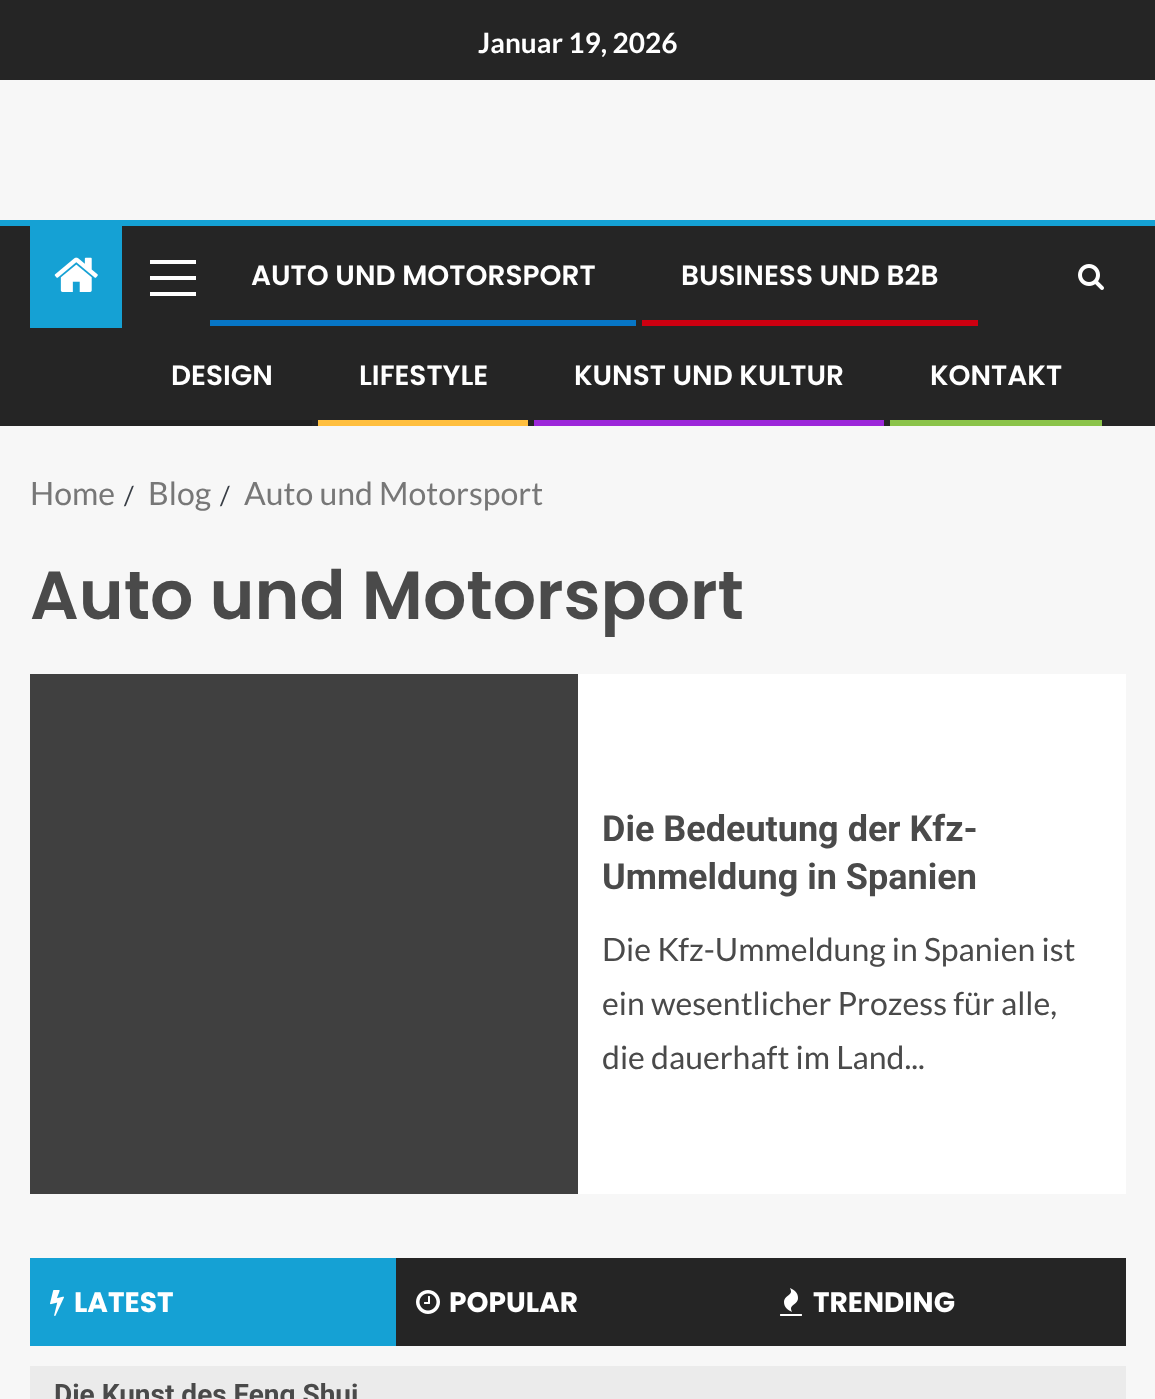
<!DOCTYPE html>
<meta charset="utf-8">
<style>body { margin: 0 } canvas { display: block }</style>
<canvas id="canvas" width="1155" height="1399"></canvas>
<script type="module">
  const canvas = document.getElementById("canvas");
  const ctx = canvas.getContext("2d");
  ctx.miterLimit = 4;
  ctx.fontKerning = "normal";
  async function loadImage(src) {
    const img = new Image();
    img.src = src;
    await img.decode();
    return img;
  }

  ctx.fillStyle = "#f7f7f7";
  ctx.fillRect(0, 0, 1155, 1399);
  ctx.fillStyle = "#252525";
  ctx.fillRect(0, 0, 1155, 80);
  ctx.font = "bold 28px Lato";
  ctx.fillStyle = "#ffffff";
  ctx.fillText("Januar 19, 2026", 478, 53);
  ctx.fillStyle = "#252525";
  ctx.fillRect(0, 226, 1155, 200);
  ctx.fillStyle = "#15a1d4";
  ctx.fillRect(0, 220, 1155, 6);
  ctx.fillRect(30, 226, 92, 102);
  ctx.drawImage(await loadImage("img1.png"), 54, 257, 44, 35);
  ctx.fillStyle = "#ffffff";
  ctx.fillRect(150, 276, 46, 4);
  ctx.fillRect(150, 260, 46, 4);
  ctx.fillRect(150, 292, 46, 4);
  ctx.font = "600 28px Poppins";
  ctx.fillText("AUTO UND MOTORSPORT", 251, 285);
  ctx.fillStyle = "#0776c6";
  ctx.fillRect(210, 320, 426, 6);
  ctx.fillStyle = "#ffffff";
  ctx.fillText("BUSINESS UND B2B", 681, 285);
  ctx.fillStyle = "#cc0010";
  ctx.fillRect(642, 320, 336, 6);
  ctx.fillStyle = "#ffffff";
  ctx.fillText("DESIGN", 171, 385);
  ctx.fillStyle = "#202020";
  ctx.fillRect(130, 420, 182, 6);
  ctx.fillStyle = "#ffffff";
  ctx.fillText("LIFESTYLE", 359, 385);
  ctx.fillStyle = "#ffbf3f";
  ctx.fillRect(318, 420, 210, 6);
  ctx.fillStyle = "#ffffff";
  ctx.fillText("KUNST UND KULTUR", 574, 385);
  ctx.fillStyle = "#9c27d9";
  ctx.fillRect(534, 420, 350, 6);
  ctx.fillStyle = "#ffffff";
  ctx.fillText("KONTAKT", 930, 385);
  ctx.fillStyle = "#8bc34a";
  ctx.fillRect(890, 420, 212, 6);
  ctx.drawImage(await loadImage("img2.png"), 1078, 264, 26, 26);
  ctx.font = "32px Lato";
  ctx.fillStyle = "#777777";
  ctx.fillText("Home", 30, 505);
  ctx.font = "26px Lato";
  ctx.fillStyle = "#393e46";
  ctx.fillText("/", 124, 505);
  ctx.font = "32px Lato";
  ctx.fillStyle = "#777777";
  ctx.fillText("Blog", 148, 505);
  ctx.font = "26px Lato";
  ctx.fillStyle = "#393e46";
  ctx.fillText("/", 220, 505);
  ctx.font = "32px Lato";
  ctx.fillStyle = "#777777";
  ctx.fillText("Auto und Motorsport", 244, 505);
  ctx.font = "600 68px Poppins";
  ctx.fillStyle = "#4a4a4a";
  ctx.fillText("Auto und Motorsport", 30, 619);
  ctx.fillStyle = "#ffffff";
  ctx.fillRect(578, 674, 548, 520);
  ctx.fillStyle = "#404040";
  ctx.fillRect(30, 674, 548, 520);
  ctx.font = "bold 36px Roboto";
  ctx.fillStyle = "#4a4a4a";
  ctx.fillText("Die Bedeutung der Kfz-", 602, 841);
  ctx.fillText("Ummeldung in Spanien", 602, 889);
  ctx.font = "32px Lato";
  ctx.fillText("Die Kfz-Ummeldung in Spanien ist", 602, 961);
  ctx.fillText("ein wesentlicher Prozess für alle,", 602, 1015);
  ctx.fillText("die dauerhaft im Land...", 602, 1069);
  ctx.fillStyle = "#15a1d4";
  ctx.fillRect(30, 1258, 366, 88);
  ctx.drawImage(await loadImage("img3.png"), 50, 1290, 14, 26);
  ctx.font = "bold 28px Poppins";
  ctx.fillStyle = "#ffffff";
  ctx.fillText("LATEST", 74, 1312);
  ctx.fillStyle = "#252525";
  ctx.fillRect(396, 1258, 730, 88);
  ctx.drawImage(await loadImage("img4.png"), 416, 1290, 24, 24);
  ctx.fillStyle = "#ffffff";
  ctx.fillText("POPULAR", 449, 1312);
  ctx.drawImage(await loadImage("img5.png"), 780, 1288, 22, 28);
  ctx.fillText("TRENDING", 813, 1312);
  ctx.fillStyle = "#ebebeb";
  ctx.fillRect(30, 1366, 1096, 33);
  ctx.font = "bold 28px Roboto";
  ctx.fillStyle = "#4a4a4a";
  ctx.fillText("Die Kunst des Feng Shui", 54, 1404);
</script>
